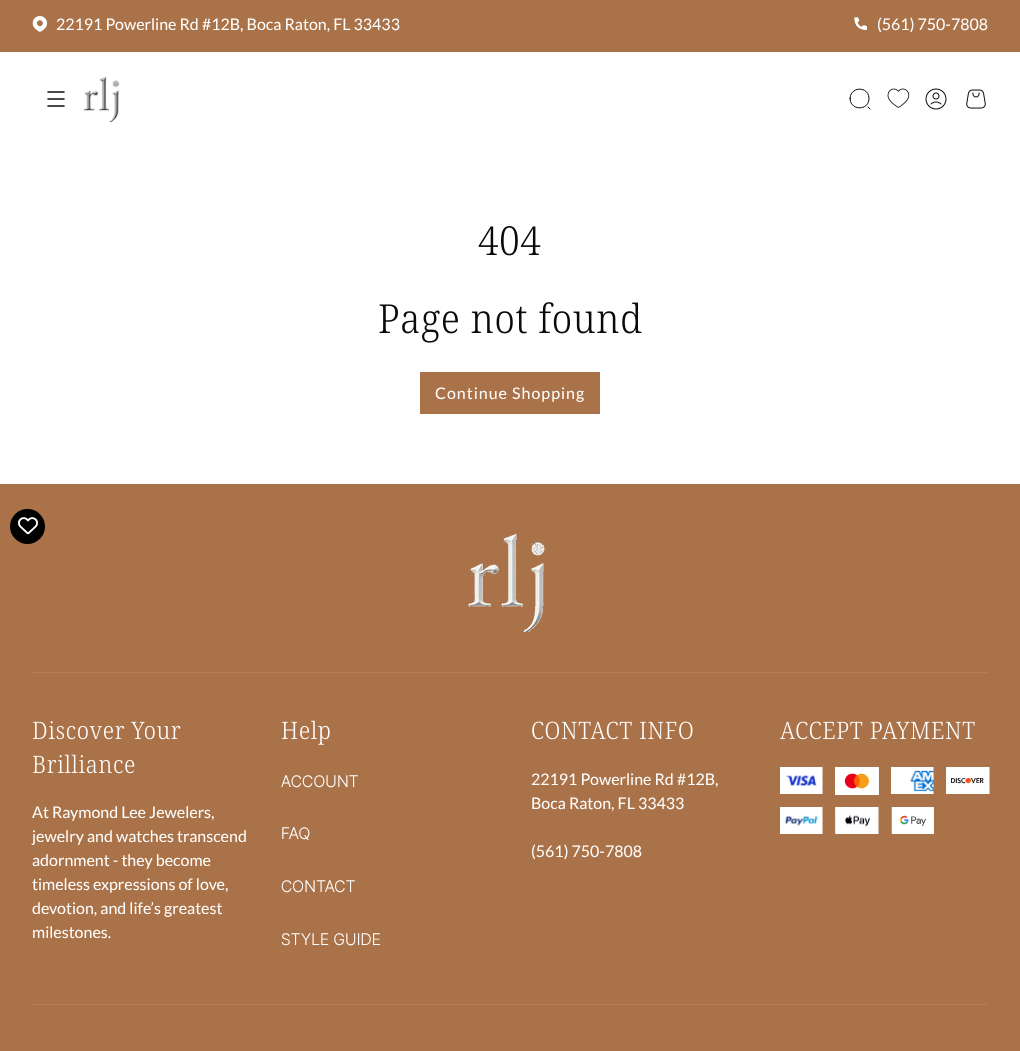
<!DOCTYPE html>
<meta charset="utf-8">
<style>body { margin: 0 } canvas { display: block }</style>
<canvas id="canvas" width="1020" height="1051"></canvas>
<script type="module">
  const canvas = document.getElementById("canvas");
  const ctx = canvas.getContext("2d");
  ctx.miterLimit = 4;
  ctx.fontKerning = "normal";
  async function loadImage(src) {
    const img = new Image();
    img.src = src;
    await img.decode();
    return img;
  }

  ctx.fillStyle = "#ffffff";
  ctx.fillRect(0, 0, 1020, 1051);
  ctx.fillStyle = "#aa7248";
  ctx.fillRect(0, 0, 1020, 52);
  ctx.drawImage(await loadImage("img1.png"), 32, 16, 16, 16);
  ctx.font = "16px Lato";
  ctx.fillStyle = "#ffffff";
  ctx.fillText("22191 Powerline Rd #12B, Boca Raton, FL 33433", 56, 30);
  ctx.drawImage(await loadImage("img2.png"), 854, 17, 13, 13);
  ctx.fillText("(561) 750-7808", 877, 30);
  ctx.drawImage(await loadImage("img3.png"), 47, 91, 18, 16);
  ctx.drawImage(await loadImage("img4.png"), 83, 76, 37, 46);
  ctx.beginPath();
  ctx.moveTo(870, 109);
  ctx.lineTo(868, 107);
  ctx.moveTo(850, 98.5);
  ctx.bezierCurveTo(850, 86, 869, 86, 869, 98.5);
  ctx.bezierCurveTo(869, 111, 850, 111, 850, 98.5);
  ctx.closePath();
  ctx.strokeStyle = "#0b0a0a";
  ctx.lineCap = "round";
  ctx.lineJoin = "round";
  ctx.stroke();
  ctx.drawImage(await loadImage("img5.png"), 887, 88, 23, 20);
  ctx.drawImage(await loadImage("img6.png"), 925, 88, 22, 22);
  ctx.drawImage(await loadImage("img7.png"), 966, 89, 20, 20);
  ctx.drawImage(await loadImage("img8.png"), 478, 226, 63, 30);
  ctx.drawImage(await loadImage("img9.png"), 379, 302, 263, 41);
  ctx.fillStyle = "#aa7248";
  ctx.fillRect(420, 372, 180, 42);
  ctx.letterSpacing = "1px";
  ctx.fillStyle = "#ffffff";
  ctx.fillText("Continue Shopping", 435, 399);
  ctx.fillStyle = "#aa7248";
  ctx.fillRect(0, 484, 1020, 567);
  ctx.fillStyle = "#000000";
  ctx.beginPath();
  ctx.arc(27.5, 526.5, 17.5, 0, Math.PI * 2);
  ctx.fill();
  ctx.drawImage(await loadImage("img10.png"), 18, 517, 20, 18);
  ctx.fillStyle = "#ba7d4f";
  ctx.fillRect(32, 672, 956, 1);
  ctx.drawImage(await loadImage("img11.png"), 468, 532, 78, 100);
  ctx.drawImage(await loadImage("img12.png"), 32, 721, 149, 19);
  ctx.drawImage(await loadImage("img13.png"), 32, 754, 103, 20);
  ctx.letterSpacing = "0px";
  ctx.fillStyle = "#ffffff";
  ctx.fillText("At Raymond Lee Jewelers,", 32, 818);
  ctx.fillText("jewelry and watches transcend", 32, 842);
  ctx.fillText("adornment - they become", 32, 866);
  ctx.fillText("timeless expressions of love,", 32, 890);
  ctx.fillText("devotion, and life’s greatest", 32, 914);
  ctx.fillText("milestones.", 32, 938);
  ctx.drawImage(await loadImage("img14.png"), 281, 720, 49, 25);
  ctx.letterSpacing = "0.25px";
  ctx.font = "300 16px Inter Tight";
  ctx.fillText("ACCOUNT", 281, 787);
  ctx.fillText("FAQ", 281, 839);
  ctx.fillText("CONTACT", 281, 892);
  ctx.fillText("STYLE GUIDE", 281, 945);
  ctx.drawImage(await loadImage("img15.png"), 532, 721, 161, 19);
  ctx.letterSpacing = "0px";
  ctx.font = "16px Lato";
  ctx.fillText("22191 Powerline Rd #12B,", 531, 785);
  ctx.fillText("Boca Raton, FL 33433", 531, 809);
  ctx.fillText("(561) 750-7808", 531, 857);
  ctx.drawImage(await loadImage("img16.png"), 780, 721, 195, 19);
  ctx.drawImage(await loadImage("img17.png"), 780, 767, 43, 27);
  ctx.drawImage(await loadImage("img18.png"), 835, 767, 44, 28);
  ctx.drawImage(await loadImage("img19.png"), 891, 767, 43, 27);
  ctx.drawImage(await loadImage("img20.png"), 946, 767, 44, 27);
  ctx.drawImage(await loadImage("img21.png"), 780, 807, 43, 27);
  ctx.drawImage(await loadImage("img22.png"), 835, 807, 44, 27);
  ctx.drawImage(await loadImage("img23.png"), 891, 807, 43, 27);
  ctx.fillStyle = "#ba7d4f";
  ctx.fillRect(32, 1004, 956, 1);
</script>
